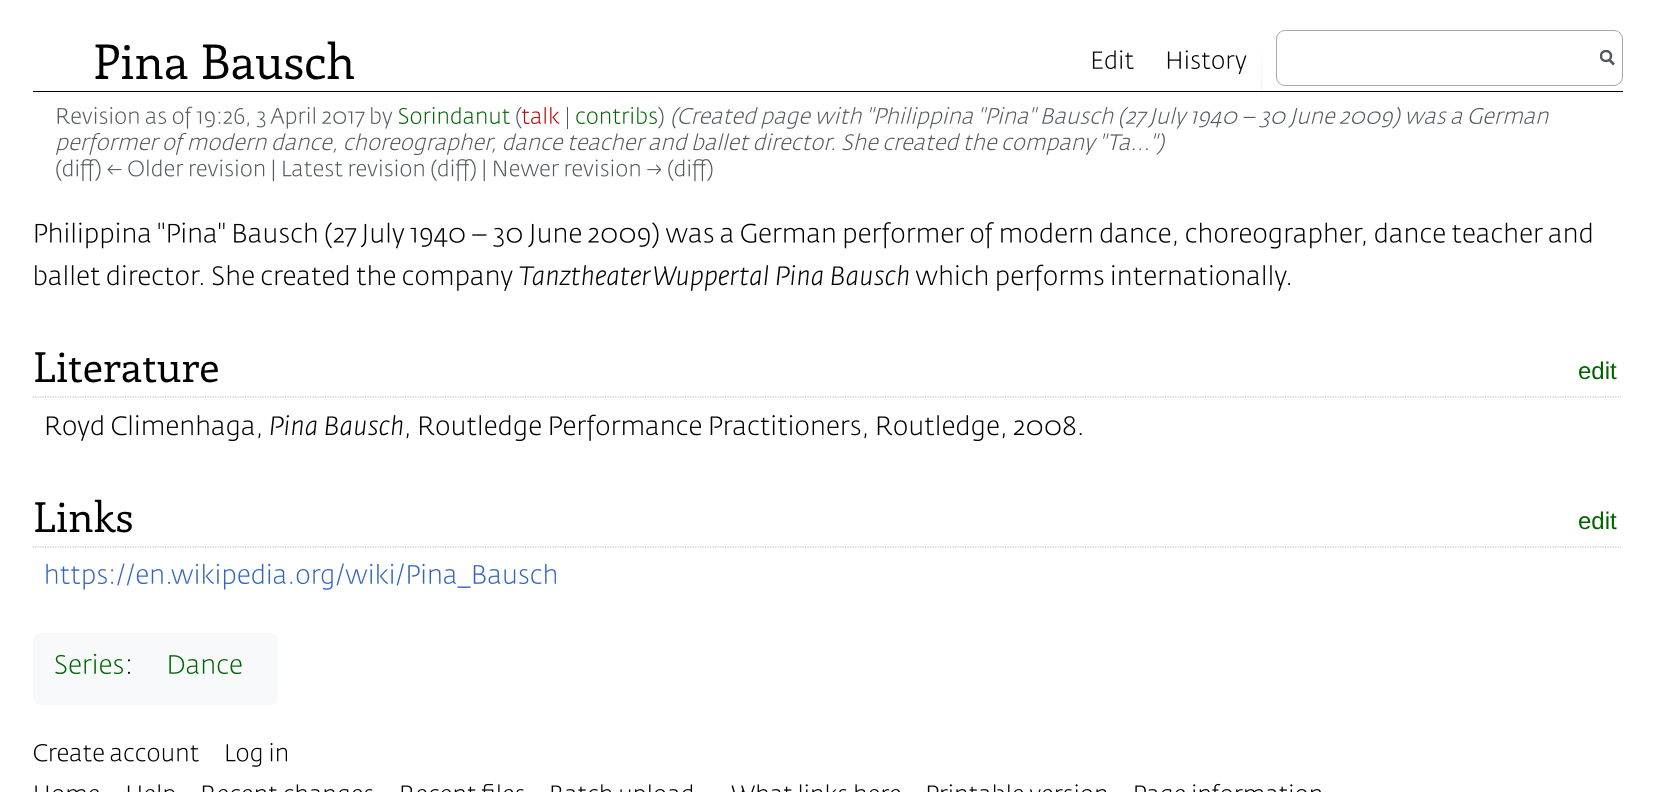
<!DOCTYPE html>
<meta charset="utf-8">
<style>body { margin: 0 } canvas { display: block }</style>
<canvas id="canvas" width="1655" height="792"></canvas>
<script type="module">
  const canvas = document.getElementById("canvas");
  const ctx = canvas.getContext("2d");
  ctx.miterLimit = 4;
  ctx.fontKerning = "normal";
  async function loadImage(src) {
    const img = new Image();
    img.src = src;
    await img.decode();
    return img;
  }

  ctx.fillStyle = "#ffffff";
  ctx.fillRect(0, 0, 1655, 792);
  ctx.drawImage(await loadImage("img1.png"), 1261, 40, 1, 50);
  ctx.drawImage(await loadImage("img2.png"), 1092, 50, 42, 19);
  ctx.drawImage(await loadImage("img3.png"), 1167, 50, 80, 25);
  ctx.beginPath();
  ctx.roundRect(1276.5, 30.5, 346, 55, 8.5);
  ctx.strokeStyle = "#a2a9b1";
  ctx.stroke();
  ctx.beginPath();
  ctx.moveTo(1614, 64.5);
  ctx.lineTo(1609, 59.5);
  ctx.strokeStyle = "#54595d";
  ctx.lineWidth = 2.5;
  ctx.stroke();
  ctx.save();
  ctx.beginPath();
  ctx.rect(1600, 50, 15, 16);
  ctx.clip();
  ctx.beginPath();
  ctx.arc(1606, 56, 5, 0, Math.PI * 2);
  ctx.stroke();
  ctx.restore();
  ctx.drawImage(await loadImage("img4.png"), 33, 744, 166, 18);
  ctx.drawImage(await loadImage("img5.png"), 226, 742, 61, 25);
  ctx.drawImage(await loadImage("img6.png"), 35, 785, 64, 7);
  ctx.drawImage(await loadImage("img7.png"), 127, 784, 48, 8);
  ctx.drawImage(await loadImage("img8.png"), 202, 784, 171, 8);
  ctx.drawImage(await loadImage("img9.png"), 401, 783, 123, 9);
  ctx.drawImage(await loadImage("img10.png"), 551, 784, 142, 8);
  ctx.drawImage(await loadImage("img11.png"), 731, 784, 169, 8);
  ctx.drawImage(await loadImage("img12.png"), 927, 784, 180, 8);
  ctx.drawImage(await loadImage("img13.png"), 1135, 783, 186, 9);
  ctx.fillStyle = "#000000";
  ctx.fillRect(33, 91, 1590, 1);
  ctx.font = "48px Enriqueta";
  ctx.fillText("Pina Bausch", 93, 79);
  ctx.drawImage(await loadImage("img14.png"), 57, 106, 336, 23);
  ctx.drawImage(await loadImage("img15.png"), 398, 106, 112, 18);
  ctx.drawImage(await loadImage("img16.png"), 516, 106, 6, 23);
  ctx.drawImage(await loadImage("img17.png"), 522, 107, 38, 17);
  ctx.fillStyle = "#54595d";
  ctx.fillRect(567, 107, 1, 22);
  ctx.drawImage(await loadImage("img18.png"), 576, 106, 81, 18);
  ctx.drawImage(await loadImage("img19.png"), 658, 106, 6, 23);
  ctx.drawImage(await loadImage("img20.png"), 672, 106, 877, 23);
  ctx.drawImage(await loadImage("img21.png"), 56, 132, 1109, 24);
  ctx.drawImage(await loadImage("img22.png"), 56, 159, 657, 23);
  ctx.drawImage(await loadImage("img23.png"), 35, 222, 1557, 27);
  ctx.drawImage(await loadImage("img24.png"), 35, 264, 478, 27);
  ctx.drawImage(await loadImage("img25.png"), 519, 264, 390, 27);
  ctx.drawImage(await loadImage("img26.png"), 915, 264, 376, 27);
  ctx.beginPath();
  ctx.moveTo(32.5, 397);
  ctx.lineTo(1622.5, 397);
  ctx.strokeStyle = "#bbbbbb";
  ctx.lineWidth = 1.2;
  ctx.setLineDash([1.25, 1.25]);
  ctx.stroke();
  ctx.font = "41.5px Enriqueta";
  ctx.fillStyle = "#000000";
  ctx.fillText("Literature", 33, 382);
  ctx.font = "24px Liberation Sans";
  ctx.fillStyle = "#006400";
  ctx.fillText("edit", 1578, 379);
  ctx.drawImage(await loadImage("img27.png"), 46, 414, 215, 27);
  ctx.drawImage(await loadImage("img28.png"), 270, 414, 133, 22);
  ctx.drawImage(await loadImage("img29.png"), 406, 414, 676, 27);
  ctx.beginPath();
  ctx.moveTo(32.5, 547);
  ctx.lineTo(1622.5, 547);
  ctx.stroke();
  ctx.font = "41.5px Enriqueta";
  ctx.fillStyle = "#000000";
  ctx.fillText("Links", 33, 532);
  ctx.font = "24px Liberation Sans";
  ctx.fillStyle = "#006400";
  ctx.fillText("edit", 1578, 529);
  ctx.drawImage(await loadImage("img30.png"), 46, 563, 510, 27);
  ctx.fillStyle = "#f8f9fa";
  ctx.beginPath();
  ctx.roundRect(33, 633, 245, 72, 8);
  ctx.fill();
  ctx.drawImage(await loadImage("img31.png"), 55, 653, 68, 22);
  ctx.drawImage(await loadImage("img32.png"), 128, 659, 2, 15);
  ctx.drawImage(await loadImage("img33.png"), 169, 655, 73, 20);
</script>
